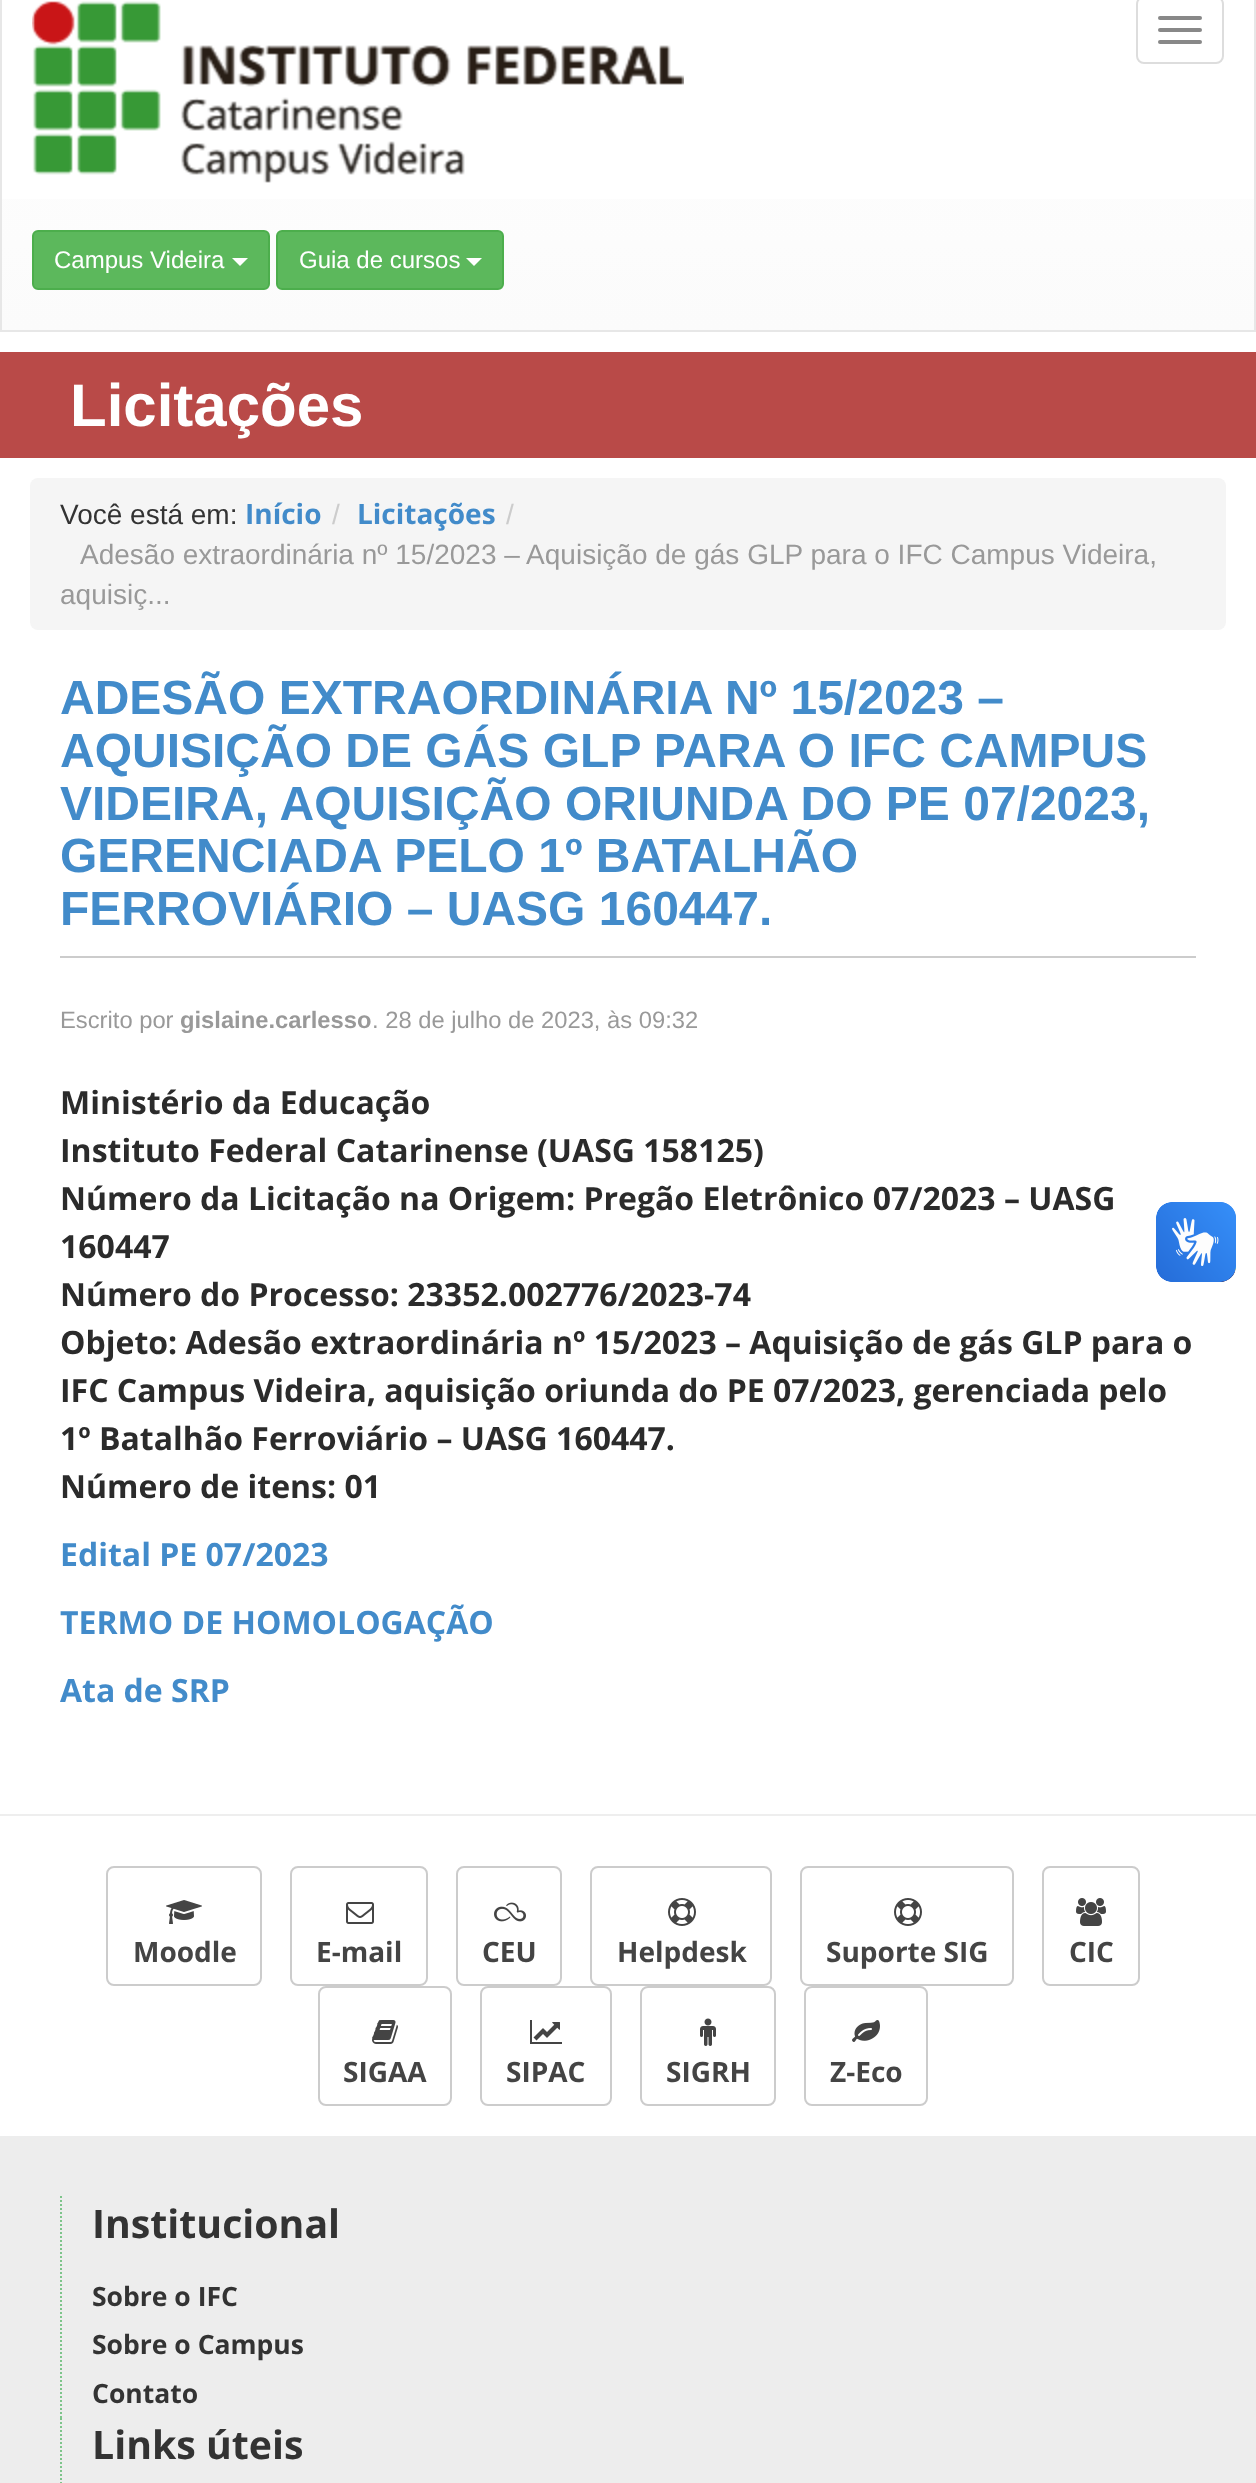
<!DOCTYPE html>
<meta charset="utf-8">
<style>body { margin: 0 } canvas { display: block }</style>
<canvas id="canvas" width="1256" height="2483"></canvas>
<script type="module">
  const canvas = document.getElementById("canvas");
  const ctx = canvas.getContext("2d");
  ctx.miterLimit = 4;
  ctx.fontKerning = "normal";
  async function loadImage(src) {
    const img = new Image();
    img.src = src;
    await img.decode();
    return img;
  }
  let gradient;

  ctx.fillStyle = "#ffffff";
  ctx.fillRect(0, 0, 1256, 2483);
  gradient = ctx.createLinearGradient(628, -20, 628, 330);
  gradient.addColorStop(0, "#ffffff");
  gradient.addColorStop(1, "#fbfbfb");
  ctx.fillStyle = gradient;
  ctx.fillRect(2, 199, 1252, 131);
  ctx.strokeStyle = "#e7e7e7";
  ctx.lineWidth = 2;
  ctx.strokeRect(1, -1, 1254, 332);
  ctx.drawImage(await loadImage("img1.png"), 32, 1, 652, 182);
  ctx.beginPath();
  ctx.roundRect(1137, -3, 86, 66, 7);
  ctx.strokeStyle = "#dddddd";
  ctx.stroke();
  ctx.fillStyle = "#888888";
  ctx.beginPath();
  ctx.roundRect(1158, 16, 44, 4, 2);
  ctx.fill();
  ctx.beginPath();
  ctx.roundRect(1158, 28, 44, 4, 2);
  ctx.fill();
  ctx.beginPath();
  ctx.roundRect(1158, 40, 44, 4, 2);
  ctx.fill();
  ctx.fillStyle = "#5cb85c";
  ctx.beginPath();
  ctx.roundRect(33, 231, 236, 58, 5);
  ctx.fill();
  ctx.strokeStyle = "#4cae4c";
  ctx.stroke();
  ctx.font = "24px Liberation Sans";
  ctx.fillStyle = "#ffffff";
  ctx.fillText("Campus Videira", 54, 268);
  ctx.beginPath();
  ctx.moveTo(232, 258);
  ctx.lineTo(248, 258);
  ctx.lineTo(240, 266);
  ctx.closePath();
  ctx.fill();
  ctx.fillStyle = "#5cb85c";
  ctx.beginPath();
  ctx.roundRect(277, 231, 226, 58, 5);
  ctx.fill();
  ctx.stroke();
  ctx.fillStyle = "#ffffff";
  ctx.fillText("Guia de cursos", 299, 268);
  ctx.beginPath();
  ctx.moveTo(466, 258);
  ctx.lineTo(482, 258);
  ctx.lineTo(474, 266);
  ctx.closePath();
  ctx.fill();
  ctx.fillStyle = "#b94a48";
  ctx.fillRect(0, 352, 1256, 106);
  ctx.font = "bold 60px Liberation Sans";
  ctx.fillStyle = "#ffffff";
  ctx.fillText("Licitações", 70, 426);
  ctx.fillStyle = "#f5f5f5";
  ctx.beginPath();
  ctx.roundRect(30, 478, 1196, 152, 8);
  ctx.fill();
  ctx.font = "28px Liberation Sans";
  ctx.fillStyle = "#333333";
  ctx.fillText("Você está em:", 60, 524);
  ctx.font = "bold 28px Open Sans";
  ctx.fillStyle = "#428bca";
  ctx.fillText("Início", 245, 524);
  ctx.font = "28px Liberation Sans";
  ctx.fillStyle = "#cccccc";
  ctx.fillText("/", 332, 524);
  ctx.font = "bold 28px Open Sans";
  ctx.fillStyle = "#428bca";
  ctx.fillText("Licitações", 357, 524);
  ctx.font = "28px Liberation Sans";
  ctx.fillStyle = "#cccccc";
  ctx.fillText("/", 506, 524);
  ctx.fillStyle = "#999999";
  ctx.fillText("Adesão extraordinária nº 15/2023 – Aquisição de gás GLP para o IFC Campus Videira,", 80, 564);
  ctx.fillText("aquisiç...", 60, 604);
  ctx.font = "bold 48px Liberation Sans";
  ctx.fillStyle = "#428bca";
  ctx.fillText("ADESÃO EXTRAORDINÁRIA Nº 15/2023 –", 60, 714);
  ctx.fillText("AQUISIÇÃO DE GÁS GLP PARA O IFC CAMPUS", 60, 767);
  ctx.fillText("VIDEIRA, AQUISIÇÃO ORIUNDA DO PE 07/2023,", 60, 820);
  ctx.fillText("GERENCIADA PELO 1º BATALHÃO", 60, 872);
  ctx.fillText("FERROVIÁRIO – UASG 160447.", 60, 925);
  ctx.fillStyle = "#cccccc";
  ctx.fillRect(60, 956, 1136, 2);
  ctx.font = "23.75px Liberation Sans";
  ctx.fillStyle = "#999999";
  ctx.fillText("Escrito por", 60, 1028);
  ctx.font = "bold 23.75px Liberation Sans";
  ctx.fillText("gislaine.carlesso", 180, 1028);
  ctx.font = "23.75px Liberation Sans";
  ctx.fillText(". 28 de julho de 2023, às 09:32", 372, 1028);
  ctx.font = "bold 32px Open Sans";
  ctx.fillStyle = "#2b2b2b";
  ctx.fillText("Ministério da Educação", 60, 1114);
  ctx.fillText("Instituto Federal Catarinense (UASG 158125)", 60, 1162);
  ctx.fillText("Número da Licitação na Origem: Pregão Eletrônico 07/2023 – UASG", 60, 1210);
  ctx.fillText("160447", 60, 1258);
  ctx.fillText("Número do Processo: 23352.002776/2023-74", 60, 1306);
  ctx.fillText("Objeto: Adesão extraordinária nº 15/2023 – Aquisição de gás GLP para o", 60, 1354);
  ctx.fillText("IFC Campus Videira, aquisição oriunda do PE 07/2023, gerenciada pelo", 60, 1402);
  ctx.fillText("1º Batalhão Ferroviário – UASG 160447.", 60, 1450);
  ctx.fillText("Número de itens: 01", 60, 1498);
  ctx.fillStyle = "#428bca";
  ctx.fillText("Edital PE 07/2023", 60, 1566);
  ctx.fillText("TERMO DE HOMOLOGAÇÃO", 60, 1634);
  ctx.fillText("Ata de SRP", 60, 1702);
  ctx.drawImage(await loadImage("img2.png"), 1156, 1202, 80, 80);
  ctx.drawImage(await loadImage("img3.png"), 1156, 1202, 80, 80);
  ctx.fillStyle = "#eeeeee";
  ctx.fillRect(0, 1814, 1256, 2);
  ctx.beginPath();
  ctx.roundRect(107, 1867, 154, 118, 7);
  ctx.strokeStyle = "#cccccc";
  ctx.stroke();
  ctx.drawImage(await loadImage("img4.png"), 166, 1900, 36, 24);
  ctx.font = "bold 28px Open Sans";
  ctx.fillStyle = "#444444";
  ctx.fillText("Moodle", 133, 1962);
  ctx.beginPath();
  ctx.roundRect(291, 1867, 136, 118, 7);
  ctx.stroke();
  ctx.drawImage(await loadImage("img5.png"), 346, 1902, 28, 22);
  ctx.fillText("E-mail", 316, 1962);
  ctx.beginPath();
  ctx.roundRect(457, 1867, 104, 118, 7);
  ctx.stroke();
  ctx.drawImage(await loadImage("img6.png"), 494, 1902, 32, 20);
  ctx.fillText("CEU", 482, 1962);
  ctx.beginPath();
  ctx.roundRect(591, 1867, 180, 118, 7);
  ctx.stroke();
  ctx.drawImage(await loadImage("img7.png"), 668, 1898, 28, 28);
  ctx.fillText("Helpdesk", 617, 1962);
  ctx.beginPath();
  ctx.roundRect(801, 1867, 212, 118, 7);
  ctx.stroke();
  ctx.drawImage(await loadImage("img7.png"), 894, 1898, 28, 28);
  ctx.fillText("Suporte SIG", 826, 1962);
  ctx.beginPath();
  ctx.roundRect(1043, 1867, 96, 118, 7);
  ctx.stroke();
  ctx.drawImage(await loadImage("img8.png"), 1076, 1898, 30, 28);
  ctx.fillText("CIC", 1069, 1962);
  ctx.beginPath();
  ctx.roundRect(319, 1987, 132, 118, 7);
  ctx.stroke();
  ctx.drawImage(await loadImage("img9.png"), 372, 2020, 26, 24);
  ctx.fillText("SIGAA", 343, 2082);
  ctx.beginPath();
  ctx.roundRect(481, 1987, 130, 118, 7);
  ctx.stroke();
  ctx.drawImage(await loadImage("img10.png"), 530, 2020, 32, 24);
  ctx.fillText("SIPAC", 506, 2082);
  ctx.beginPath();
  ctx.roundRect(641, 1987, 134, 118, 7);
  ctx.stroke();
  ctx.drawImage(await loadImage("img11.png"), 700, 2018, 16, 28);
  ctx.fillText("SIGRH", 666, 2082);
  ctx.beginPath();
  ctx.roundRect(805, 1987, 122, 118, 7);
  ctx.stroke();
  ctx.drawImage(await loadImage("img12.png"), 852, 2020, 28, 22);
  ctx.fillText("Z-Eco", 830, 2082);
  ctx.fillStyle = "#ededed";
  ctx.fillRect(0, 2136, 1256, 347);
  ctx.beginPath();
  ctx.moveTo(61, 2196);
  ctx.lineTo(61, 2418);
  ctx.strokeStyle = "#7dc48a";
  ctx.setLineDash([2, 2]);
  ctx.stroke();
  ctx.font = "bold 39.25px Open Sans";
  ctx.fillStyle = "#333333";
  ctx.fillText("Institucional", 92, 2238);
  ctx.font = "bold 26.5px Open Sans";
  ctx.fillText("Sobre o IFC", 92, 2306);
  ctx.fillText("Sobre o Campus", 92, 2354);
  ctx.fillText("Contato", 92, 2403);
  ctx.beginPath();
  ctx.moveTo(61, 2418);
  ctx.lineTo(61, 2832);
  ctx.stroke();
  ctx.font = "bold 39.25px Open Sans";
  ctx.fillText("Links úteis", 92, 2459);
</script>
